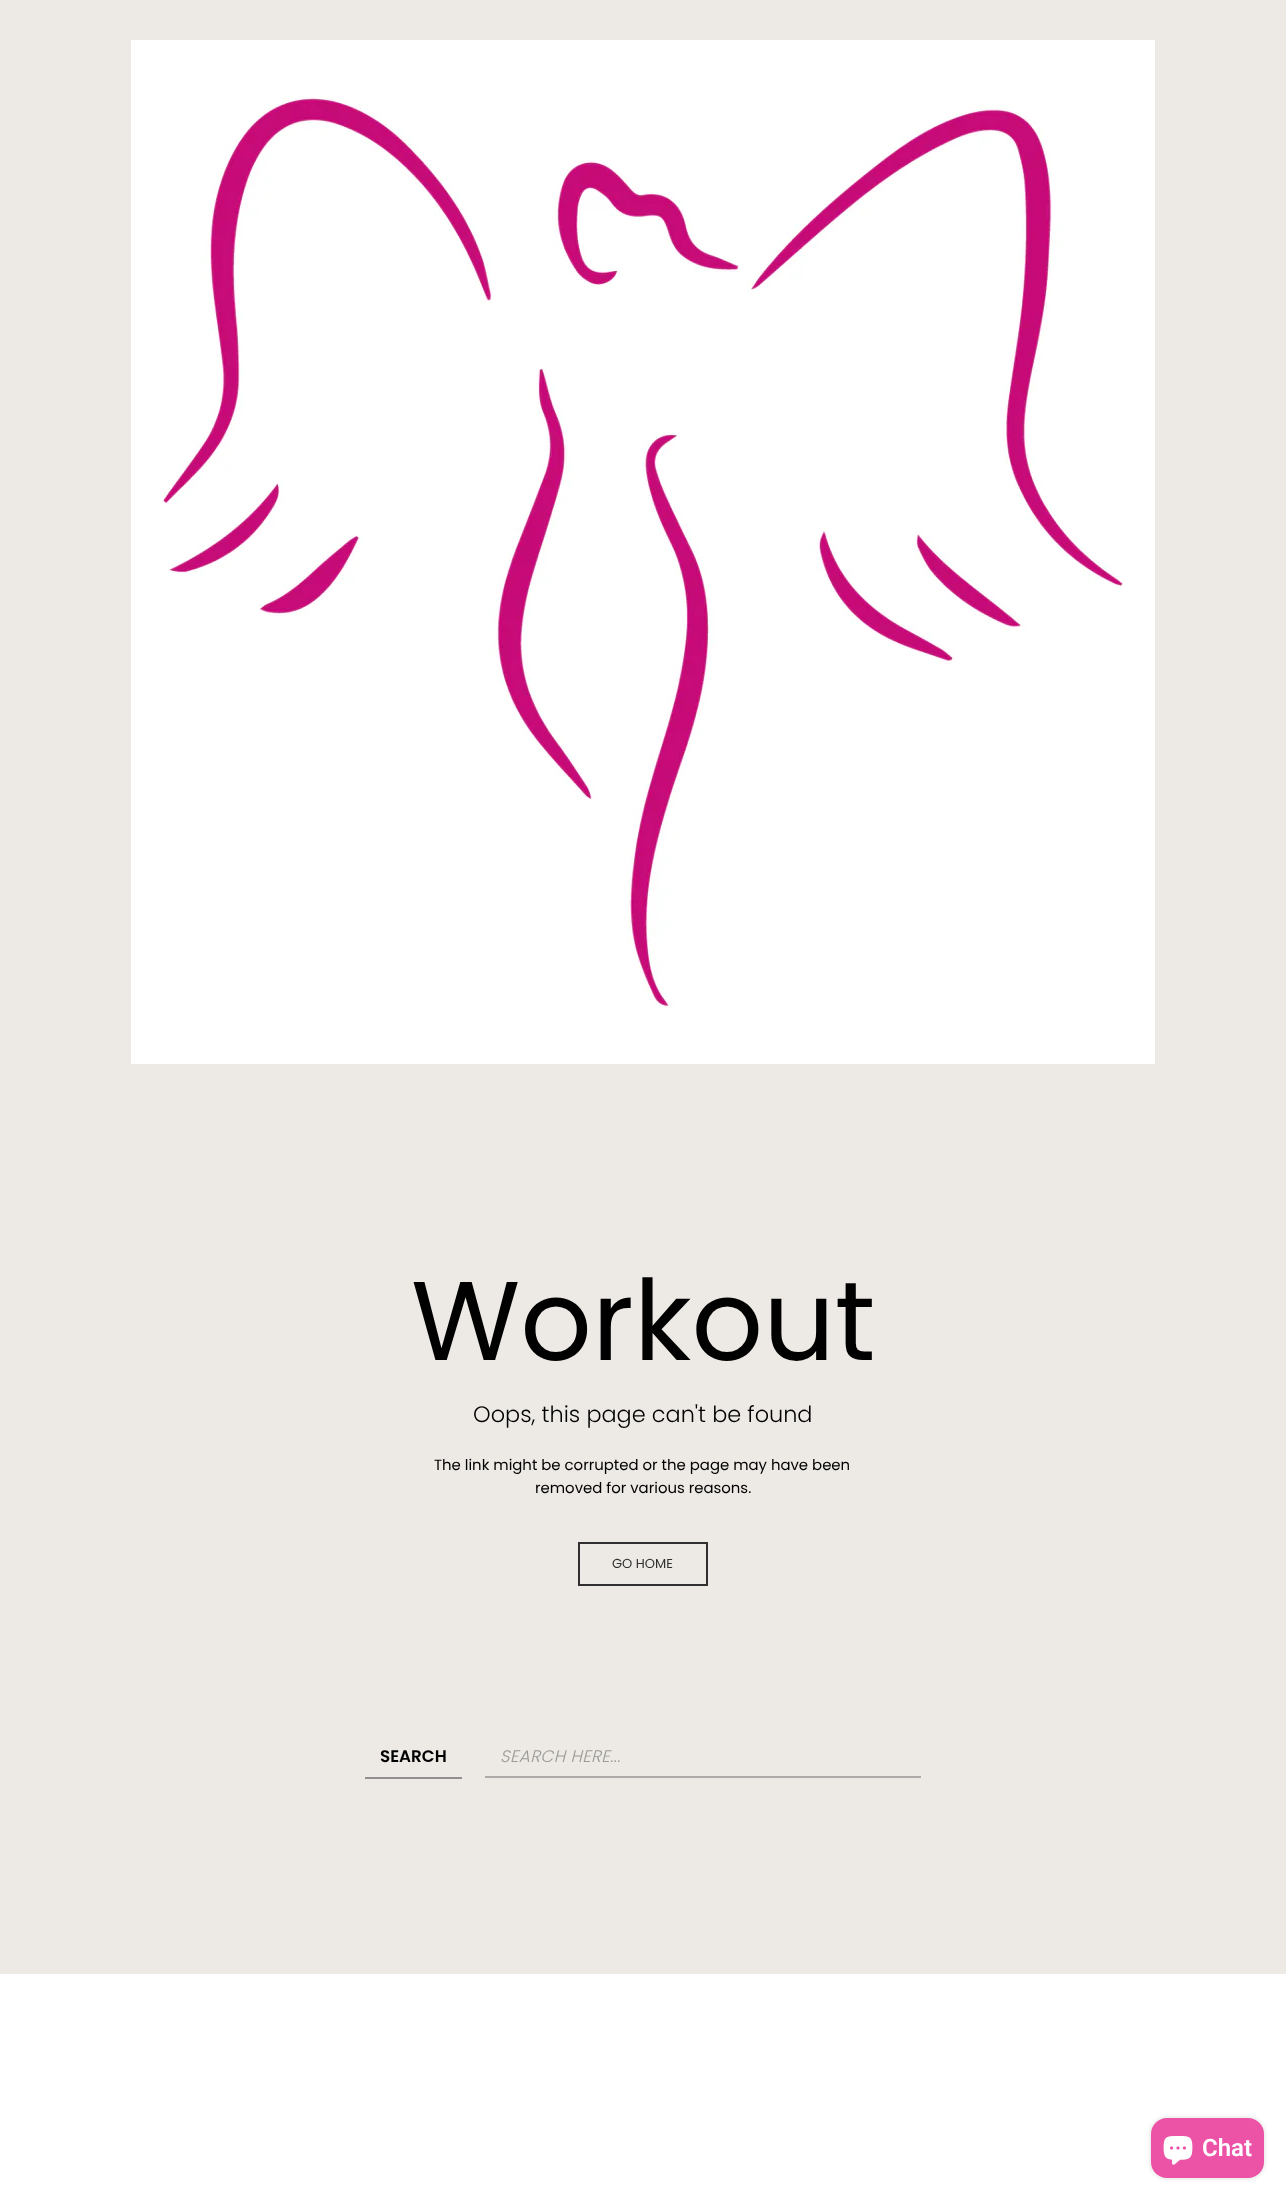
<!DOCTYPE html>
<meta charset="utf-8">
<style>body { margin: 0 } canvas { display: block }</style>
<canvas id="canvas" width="1286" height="2199"></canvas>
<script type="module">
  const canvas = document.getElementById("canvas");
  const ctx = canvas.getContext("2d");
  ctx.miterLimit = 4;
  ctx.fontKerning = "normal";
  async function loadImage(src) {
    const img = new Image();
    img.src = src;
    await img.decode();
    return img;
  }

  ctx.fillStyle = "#ffffff";
  ctx.fillRect(0, 0, 1286, 2199);
  ctx.fillStyle = "#edeae5";
  ctx.fillRect(0, 0, 1286, 1974);
  ctx.drawImage(await loadImage("img1.png"), 131, 40, 1024, 1024);
  ctx.font = "112px Poppins";
  ctx.fillStyle = "#010101";
  ctx.fillText("Workout", 411, 1360);
  ctx.font = "300 22.4px Poppins";
  ctx.fillText("Oops, this page can't be found", 473, 1422);
  ctx.font = "14.9px Poppins";
  ctx.fillText("The link might be corrupted or the page may have been", 434, 1470);
  ctx.fillText("removed for various reasons.", 535, 1493);
  ctx.strokeStyle = "#303030";
  ctx.lineWidth = 2;
  ctx.strokeRect(579, 1543, 128, 42);
  ctx.font = "13px Poppins";
  ctx.fillStyle = "#303030";
  ctx.fillText("GO HOME", 612, 1568);
  ctx.fillStyle = "#909090";
  ctx.fillRect(365, 1777, 97, 2);
  ctx.font = "600 16.75px Poppins";
  ctx.fillStyle = "#010101";
  ctx.fillText("SEARCH", 380, 1762);
  ctx.fillStyle = "#acabaa";
  ctx.fillRect(485, 1776, 436, 2);
  ctx.letterSpacing = "0.4px";
  ctx.font = "italic 300 16.75px Poppins";
  ctx.fillStyle = "#9a9a98";
  ctx.fillText("SEARCH HERE...", 500, 1762);
  ctx.fillStyle = "rgba(0, 0, 0, 0.15)";
  ctx.filter = "blur(2.5px)";
  ctx.beginPath();
  ctx.roundRect(1151, 2118, 113, 60, 16);
  ctx.fill();
  ctx.filter = "none";
  ctx.fillStyle = "#ec52a5";
  ctx.beginPath();
  ctx.roundRect(1151, 2118, 113, 60, 16);
  ctx.fill();
  ctx.drawImage(await loadImage("img2.png"), 1163, 2136, 30, 29);
  ctx.letterSpacing = "0px";
  ctx.font = "600 24px Roboto";
  ctx.fillStyle = "#ffffff";
  ctx.fillText("Chat", 1202, 2156);
</script>
